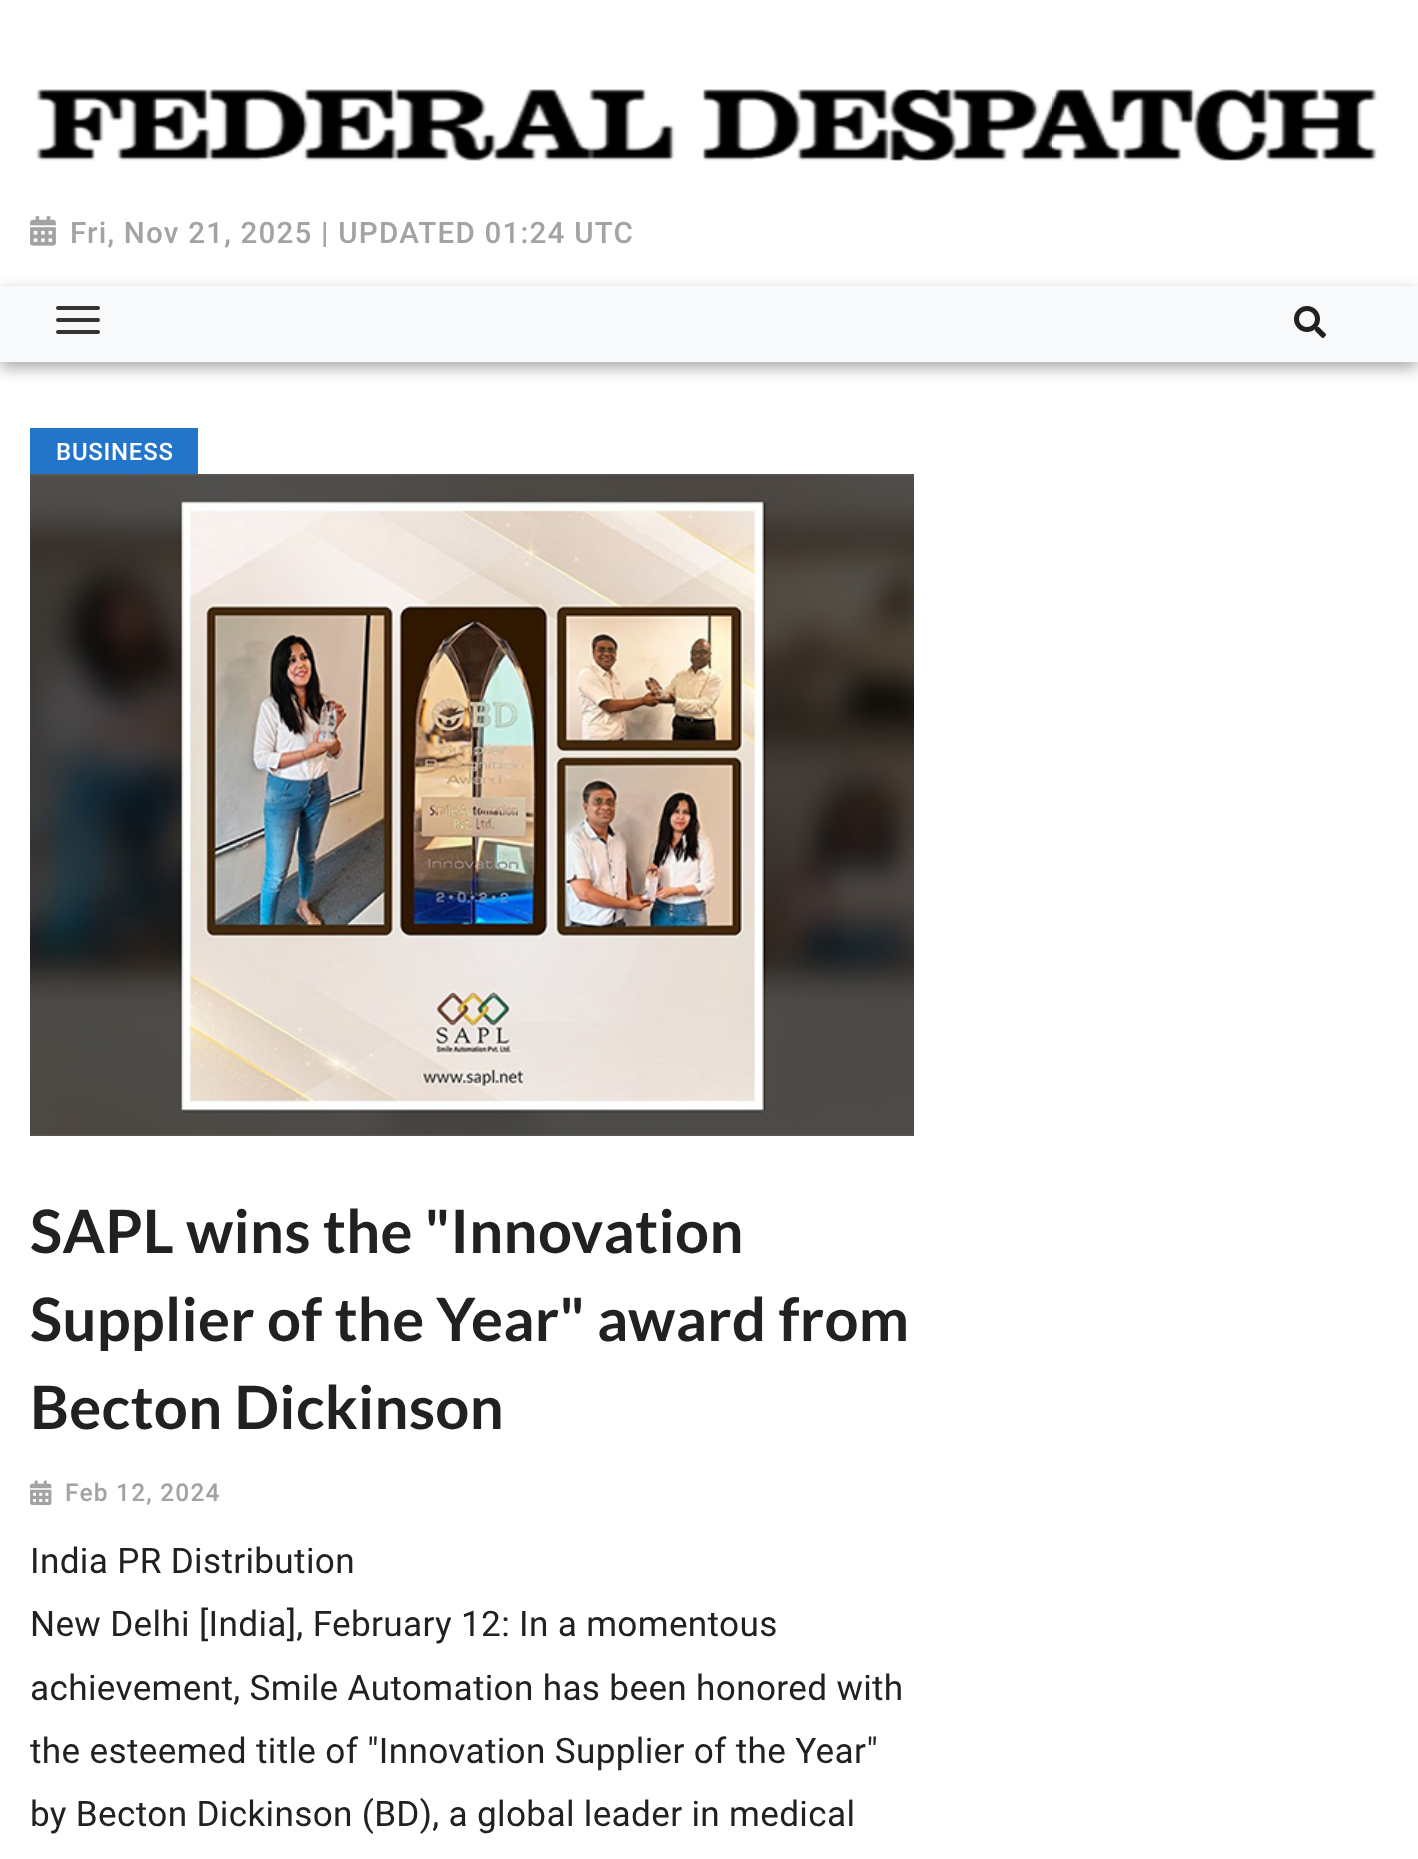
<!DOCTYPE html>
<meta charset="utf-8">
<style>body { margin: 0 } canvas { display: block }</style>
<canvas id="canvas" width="1418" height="1859"></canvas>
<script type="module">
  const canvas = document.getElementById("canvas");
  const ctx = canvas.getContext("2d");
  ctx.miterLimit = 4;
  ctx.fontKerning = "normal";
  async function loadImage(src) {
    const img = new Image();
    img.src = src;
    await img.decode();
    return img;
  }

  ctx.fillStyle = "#ffffff";
  ctx.fillRect(0, 0, 1418, 1859);
  ctx.drawImage(await loadImage("img1.png"), 36, 89, 1341, 72);
  ctx.drawImage(await loadImage("img2.png"), 30, 216, 26, 30);
  ctx.letterSpacing = "1.2px";
  ctx.font = "500 29.6px Roboto";
  ctx.fillStyle = "#a5a2a2";
  ctx.fillText("Fri, Nov 21, 2025 | UPDATED 01:24 UTC", 70, 243);
  ctx.fillStyle = "#a9a9a9";
  ctx.filter = "blur(8px)";
  ctx.beginPath();
  ctx.rect(0, 292, 1418, 76);
  ctx.fill();
  ctx.filter = "none";
  ctx.fillStyle = "#f8f9fa";
  ctx.fillRect(0, 286, 1418, 76);
  ctx.fillStyle = "#333333";
  ctx.beginPath();
  ctx.roundRect(56, 306, 44, 4, 2);
  ctx.fill();
  ctx.beginPath();
  ctx.roundRect(56, 318, 44, 4, 2);
  ctx.fill();
  ctx.beginPath();
  ctx.roundRect(56, 330, 44, 4, 2);
  ctx.fill();
  ctx.drawImage(await loadImage("img3.png"), 1294, 306, 32, 32);
  ctx.fillStyle = "#2375c9";
  ctx.fillRect(30, 428, 168, 46);
  ctx.letterSpacing = "0.75px";
  ctx.font = "500 24px Roboto";
  ctx.fillStyle = "#ffffff";
  ctx.fillText("BUSINESS", 56, 460);
  ctx.drawImage(await loadImage("img4.png"), 30, 474, 884, 662);
  ctx.letterSpacing = "0.32px";
  ctx.font = "bold 59.8px Lato";
  ctx.fillStyle = "#212121";
  ctx.fillText("SAPL wins the \"Innovation", 30, 1253);
  ctx.fillText("Supplier of the Year\" award from", 30, 1341);
  ctx.fillText("Becton Dickinson", 30, 1429);
  ctx.drawImage(await loadImage("img5.png"), 30, 1480, 22, 26);
  ctx.letterSpacing = "1.2px";
  ctx.font = "500 24.5px Roboto";
  ctx.fillStyle = "#a5a2a2";
  ctx.fillText("Feb 12, 2024", 65, 1501);
  ctx.letterSpacing = "0.32px";
  ctx.font = "35.2px Roboto";
  ctx.fillStyle = "#212121";
  ctx.fillText("India PR Distribution", 30, 1573);
  ctx.fillText("New Delhi [India], February 12: In a momentous", 30, 1636);
  ctx.fillText("achievement, Smile Automation has been honored with", 30, 1700);
  ctx.fillText("the esteemed title of \"Innovation Supplier of the Year\"", 30, 1763);
  ctx.fillText("by Becton Dickinson (BD), a global leader in medical", 30, 1826);
</script>
